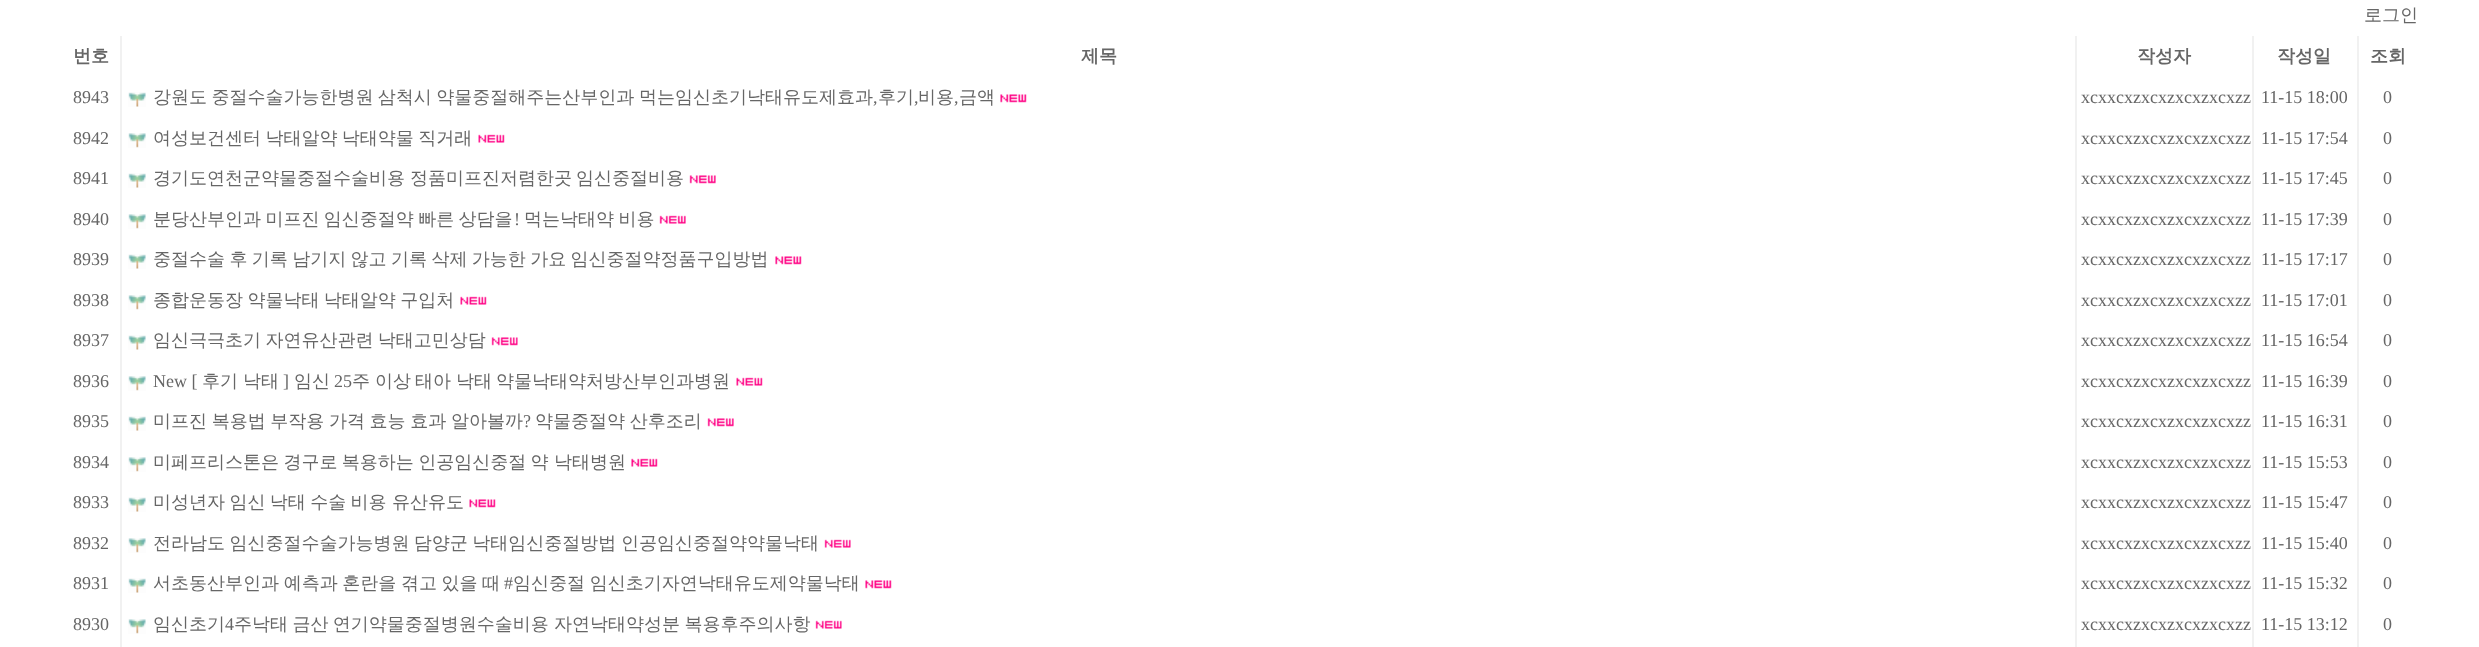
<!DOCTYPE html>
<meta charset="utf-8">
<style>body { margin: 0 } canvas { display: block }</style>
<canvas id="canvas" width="2479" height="647"></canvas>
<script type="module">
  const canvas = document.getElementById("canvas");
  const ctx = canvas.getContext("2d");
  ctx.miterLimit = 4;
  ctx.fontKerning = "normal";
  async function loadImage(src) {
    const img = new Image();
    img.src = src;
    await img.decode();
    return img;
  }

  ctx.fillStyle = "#ffffff";
  ctx.fillRect(0, 0, 2479, 647);
  ctx.font = "500 18px WenQuanYi Zen Hei";
  ctx.fillStyle = "#666666";
  ctx.fillText("로그인", 2364, 21);
  ctx.fillStyle = "#f1f1f1";
  ctx.fillRect(120, 36, 2, 611);
  ctx.font = "bold 18px WenQuanYi Zen Hei";
  ctx.fillStyle = "#666666";
  ctx.fillText("번호", 73, 62);
  ctx.fillText("제목", 1081, 62);
  ctx.fillStyle = "#f1f1f1";
  ctx.fillRect(2075, 36, 2, 611);
  ctx.fillRect(2252, 36, 2, 611);
  ctx.fillStyle = "#666666";
  ctx.fillText("작성자", 2137, 62);
  ctx.fillStyle = "#f1f1f1";
  ctx.fillRect(2357, 36, 2, 611);
  ctx.fillStyle = "#666666";
  ctx.fillText("작성일", 2277, 62);
  ctx.fillText("조회", 2370, 62);
  ctx.font = "18px Liberation Serif";
  ctx.fillText("8943", 73, 103);
  ctx.drawImage(await loadImage("img1.png"), 128, 92, 18, 15);
  ctx.wordSpacing = "-1px";
  ctx.font = "500 18px WenQuanYi Zen Hei";
  ctx.fillText("강원도 중절수술가능한병원 삼척시 약물중절해주는산부인과", 153, 103);
  ctx.wordSpacing = "0px";
  ctx.fillText("먹는임신초기낙태유도제효과", 639, 103);
  ctx.fillText("후기", 878, 103);
  ctx.fillText("비용", 918, 103);
  ctx.fillText("금액", 959, 103);
  ctx.drawImage(await loadImage("img2.png"), 1000, 94, 27, 9);
  ctx.font = "18px Liberation Serif";
  ctx.fillText(",", 873, 103);
  ctx.fillText(",", 914, 103);
  ctx.fillText(",", 954, 103);
  ctx.fillText("xcxxcxzxcxzxcxzxcxzz", 2081, 103);
  ctx.fillText("11-15 18:00", 2261, 103);
  ctx.fillText("0", 2383, 103);
  ctx.fillText("8942", 73, 144);
  ctx.drawImage(await loadImage("img3.png"), 128, 133, 18, 15);
  ctx.wordSpacing = "-1px";
  ctx.font = "500 18px WenQuanYi Zen Hei";
  ctx.fillText("여성보건센터 낙태알약 낙태약물 직거래", 153, 144);
  ctx.drawImage(await loadImage("img4.png"), 478, 134, 27, 9);
  ctx.wordSpacing = "0px";
  ctx.font = "18px Liberation Serif";
  ctx.fillText("xcxxcxzxcxzxcxzxcxzz", 2081, 144);
  ctx.fillText("11-15 17:54", 2261, 144);
  ctx.fillText("0", 2383, 144);
  ctx.fillText("8941", 73, 184);
  ctx.drawImage(await loadImage("img1.png"), 128, 173, 18, 15);
  ctx.font = "500 18px WenQuanYi Zen Hei";
  ctx.fillText("경기도연천군약물중절수술비용", 153, 184);
  ctx.fillText("정품미프진저렴한곳", 410, 184);
  ctx.fillText("임신중절비용", 576, 184);
  ctx.drawImage(await loadImage("img5.png"), 689, 175, 27, 9);
  ctx.font = "18px Liberation Serif";
  ctx.fillText("xcxxcxzxcxzxcxzxcxzz", 2081, 184);
  ctx.fillText("11-15 17:45", 2261, 184);
  ctx.fillText("0", 2383, 184);
  ctx.fillText("8940", 73, 225);
  ctx.drawImage(await loadImage("img3.png"), 128, 214, 18, 15);
  ctx.wordSpacing = "-1px";
  ctx.font = "500 18px WenQuanYi Zen Hei";
  ctx.fillText("분당산부인과 미프진 임신중절약 빠른 상담을", 153, 225);
  ctx.wordSpacing = "0px";
  ctx.font = "18px Liberation Serif";
  ctx.fillText("!", 514, 225);
  ctx.wordSpacing = "-1px";
  ctx.font = "500 18px WenQuanYi Zen Hei";
  ctx.fillText("먹는낙태약 비용", 524, 225);
  ctx.drawImage(await loadImage("img6.png"), 659, 215, 27, 9);
  ctx.wordSpacing = "0px";
  ctx.font = "18px Liberation Serif";
  ctx.fillText("xcxxcxzxcxzxcxzxcxzz", 2081, 225);
  ctx.fillText("11-15 17:39", 2261, 225);
  ctx.fillText("0", 2383, 225);
  ctx.fillText("8939", 73, 265);
  ctx.drawImage(await loadImage("img1.png"), 128, 254, 18, 15);
  ctx.wordSpacing = "-1px";
  ctx.font = "500 18px WenQuanYi Zen Hei";
  ctx.fillText("중절수술 후 기록 남기지 않고 기록 삭제 가능한 가요 임신중절약정품구입방법", 153, 265);
  ctx.drawImage(await loadImage("img2.png"), 775, 256, 27, 9);
  ctx.wordSpacing = "0px";
  ctx.font = "18px Liberation Serif";
  ctx.fillText("xcxxcxzxcxzxcxzxcxzz", 2081, 265);
  ctx.fillText("11-15 17:17", 2261, 265);
  ctx.fillText("0", 2383, 265);
  ctx.fillText("8938", 73, 306);
  ctx.drawImage(await loadImage("img3.png"), 128, 295, 18, 15);
  ctx.wordSpacing = "-1px";
  ctx.font = "500 18px WenQuanYi Zen Hei";
  ctx.fillText("종합운동장 약물낙태 낙태알약 구입처", 153, 306);
  ctx.drawImage(await loadImage("img4.png"), 460, 296, 27, 9);
  ctx.wordSpacing = "0px";
  ctx.font = "18px Liberation Serif";
  ctx.fillText("xcxxcxzxcxzxcxzxcxzz", 2081, 306);
  ctx.fillText("11-15 17:01", 2261, 306);
  ctx.fillText("0", 2383, 306);
  ctx.fillText("8937", 73, 346);
  ctx.drawImage(await loadImage("img1.png"), 128, 335, 18, 15);
  ctx.wordSpacing = "-1px";
  ctx.font = "500 18px WenQuanYi Zen Hei";
  ctx.fillText("임신극극초기 자연유산관련 낙태고민상담", 153, 346);
  ctx.drawImage(await loadImage("img7.png"), 491, 337, 27, 9);
  ctx.wordSpacing = "0px";
  ctx.font = "18px Liberation Serif";
  ctx.fillText("xcxxcxzxcxzxcxzxcxzz", 2081, 346);
  ctx.fillText("11-15 16:54", 2261, 346);
  ctx.fillText("0", 2383, 346);
  ctx.fillText("8936", 73, 387);
  ctx.drawImage(await loadImage("img3.png"), 128, 376, 18, 15);
  ctx.fillText("New [", 153, 387);
  ctx.font = "500 18px WenQuanYi Zen Hei";
  ctx.fillText("후기", 202, 387);
  ctx.fillText("낙태", 243, 387);
  ctx.font = "18px Liberation Serif";
  ctx.fillText("]", 283, 387);
  ctx.font = "500 18px WenQuanYi Zen Hei";
  ctx.fillText("임신", 294, 387);
  ctx.font = "18px Liberation Serif";
  ctx.fillText("25", 334, 387);
  ctx.font = "500 18px WenQuanYi Zen Hei";
  ctx.fillText("주", 352, 387);
  ctx.fillText("이상", 375, 387);
  ctx.fillText("태아", 415, 387);
  ctx.fillText("낙태", 456, 387);
  ctx.fillText("약물낙태약처방산부인과병원", 496, 387);
  ctx.drawImage(await loadImage("img4.png"), 736, 377, 27, 9);
  ctx.font = "18px Liberation Serif";
  ctx.fillText("xcxxcxzxcxzxcxzxcxzz", 2081, 387);
  ctx.fillText("11-15 16:39", 2261, 387);
  ctx.fillText("0", 2383, 387);
  ctx.fillText("8935", 73, 427);
  ctx.drawImage(await loadImage("img1.png"), 128, 416, 18, 15);
  ctx.wordSpacing = "-0.75px";
  ctx.font = "500 18px WenQuanYi Zen Hei";
  ctx.fillText("미프진 복용법 부작용 가격 효능 효과 알아볼까", 153, 427);
  ctx.wordSpacing = "0px";
  ctx.font = "18px Liberation Serif";
  ctx.fillText("?", 523, 427);
  ctx.wordSpacing = "-0.75px";
  ctx.font = "500 18px WenQuanYi Zen Hei";
  ctx.fillText("약물중절약 산후조리", 535, 427);
  ctx.drawImage(await loadImage("img5.png"), 707, 418, 27, 9);
  ctx.wordSpacing = "0px";
  ctx.font = "18px Liberation Serif";
  ctx.fillText("xcxxcxzxcxzxcxzxcxzz", 2081, 427);
  ctx.fillText("11-15 16:31", 2261, 427);
  ctx.fillText("0", 2383, 427);
  ctx.fillText("8934", 73, 468);
  ctx.drawImage(await loadImage("img3.png"), 128, 457, 18, 15);
  ctx.wordSpacing = "-1px";
  ctx.font = "500 18px WenQuanYi Zen Hei";
  ctx.fillText("미페프리스톤은 경구로 복용하는 인공임신중절 약", 153, 468);
  ctx.wordSpacing = "0px";
  ctx.fillText("낙태병원", 554, 468);
  ctx.drawImage(await loadImage("img8.png"), 631, 458, 27, 9);
  ctx.font = "18px Liberation Serif";
  ctx.fillText("xcxxcxzxcxzxcxzxcxzz", 2081, 468);
  ctx.fillText("11-15 15:53", 2261, 468);
  ctx.fillText("0", 2383, 468);
  ctx.fillText("8933", 73, 508);
  ctx.drawImage(await loadImage("img1.png"), 128, 497, 18, 15);
  ctx.wordSpacing = "-1px";
  ctx.font = "500 18px WenQuanYi Zen Hei";
  ctx.fillText("미성년자 임신 낙태 수술 비용", 153, 508);
  ctx.wordSpacing = "0px";
  ctx.fillText("유산유도", 392, 508);
  ctx.drawImage(await loadImage("img9.png"), 469, 499, 27, 9);
  ctx.font = "18px Liberation Serif";
  ctx.fillText("xcxxcxzxcxzxcxzxcxzz", 2081, 508);
  ctx.fillText("11-15 15:47", 2261, 508);
  ctx.fillText("0", 2383, 508);
  ctx.fillText("8932", 73, 549);
  ctx.drawImage(await loadImage("img3.png"), 128, 538, 18, 15);
  ctx.wordSpacing = "-1px";
  ctx.font = "500 18px WenQuanYi Zen Hei";
  ctx.fillText("전라남도 임신중절수술가능병원 담양군 낙태임신중절방법", 153, 549);
  ctx.wordSpacing = "0px";
  ctx.fillText("인공임신중절약약물낙태", 621, 549);
  ctx.drawImage(await loadImage("img10.png"), 824, 539, 27, 9);
  ctx.font = "18px Liberation Serif";
  ctx.fillText("xcxxcxzxcxzxcxzxcxzz", 2081, 549);
  ctx.fillText("11-15 15:40", 2261, 549);
  ctx.fillText("0", 2383, 549);
  ctx.fillText("8931", 73, 589);
  ctx.drawImage(await loadImage("img1.png"), 128, 578, 18, 15);
  ctx.wordSpacing = "-0.75px";
  ctx.font = "500 18px WenQuanYi Zen Hei";
  ctx.fillText("서초동산부인과 예측과 혼란을 겪고 있을 때", 153, 589);
  ctx.wordSpacing = "0px";
  ctx.font = "18px Liberation Serif";
  ctx.fillText("#", 504, 589);
  ctx.wordSpacing = "-0.75px";
  ctx.font = "500 18px WenQuanYi Zen Hei";
  ctx.fillText("임신중절 임신초기자연낙태유도제약물낙태", 513, 589);
  ctx.drawImage(await loadImage("img2.png"), 865, 580, 27, 9);
  ctx.wordSpacing = "0px";
  ctx.font = "18px Liberation Serif";
  ctx.fillText("xcxxcxzxcxzxcxzxcxzz", 2081, 589);
  ctx.fillText("11-15 15:32", 2261, 589);
  ctx.fillText("0", 2383, 589);
  ctx.fillText("8930", 73, 630);
  ctx.drawImage(await loadImage("img3.png"), 128, 619, 18, 15);
  ctx.font = "500 18px WenQuanYi Zen Hei";
  ctx.fillText("임신초기", 153, 630);
  ctx.font = "18px Liberation Serif";
  ctx.fillText("4", 225, 630);
  ctx.wordSpacing = "-1px";
  ctx.font = "500 18px WenQuanYi Zen Hei";
  ctx.fillText("주낙태 금산 연기약물중절병원수술비용", 234, 630);
  ctx.fillText("자연낙태약성분 복용후주의사항", 554, 630);
  ctx.drawImage(await loadImage("img10.png"), 815, 620, 27, 9);
  ctx.wordSpacing = "0px";
  ctx.font = "18px Liberation Serif";
  ctx.fillText("xcxxcxzxcxzxcxzxcxzz", 2081, 630);
  ctx.fillText("11-15 13:12", 2261, 630);
  ctx.fillText("0", 2383, 630);
</script>
